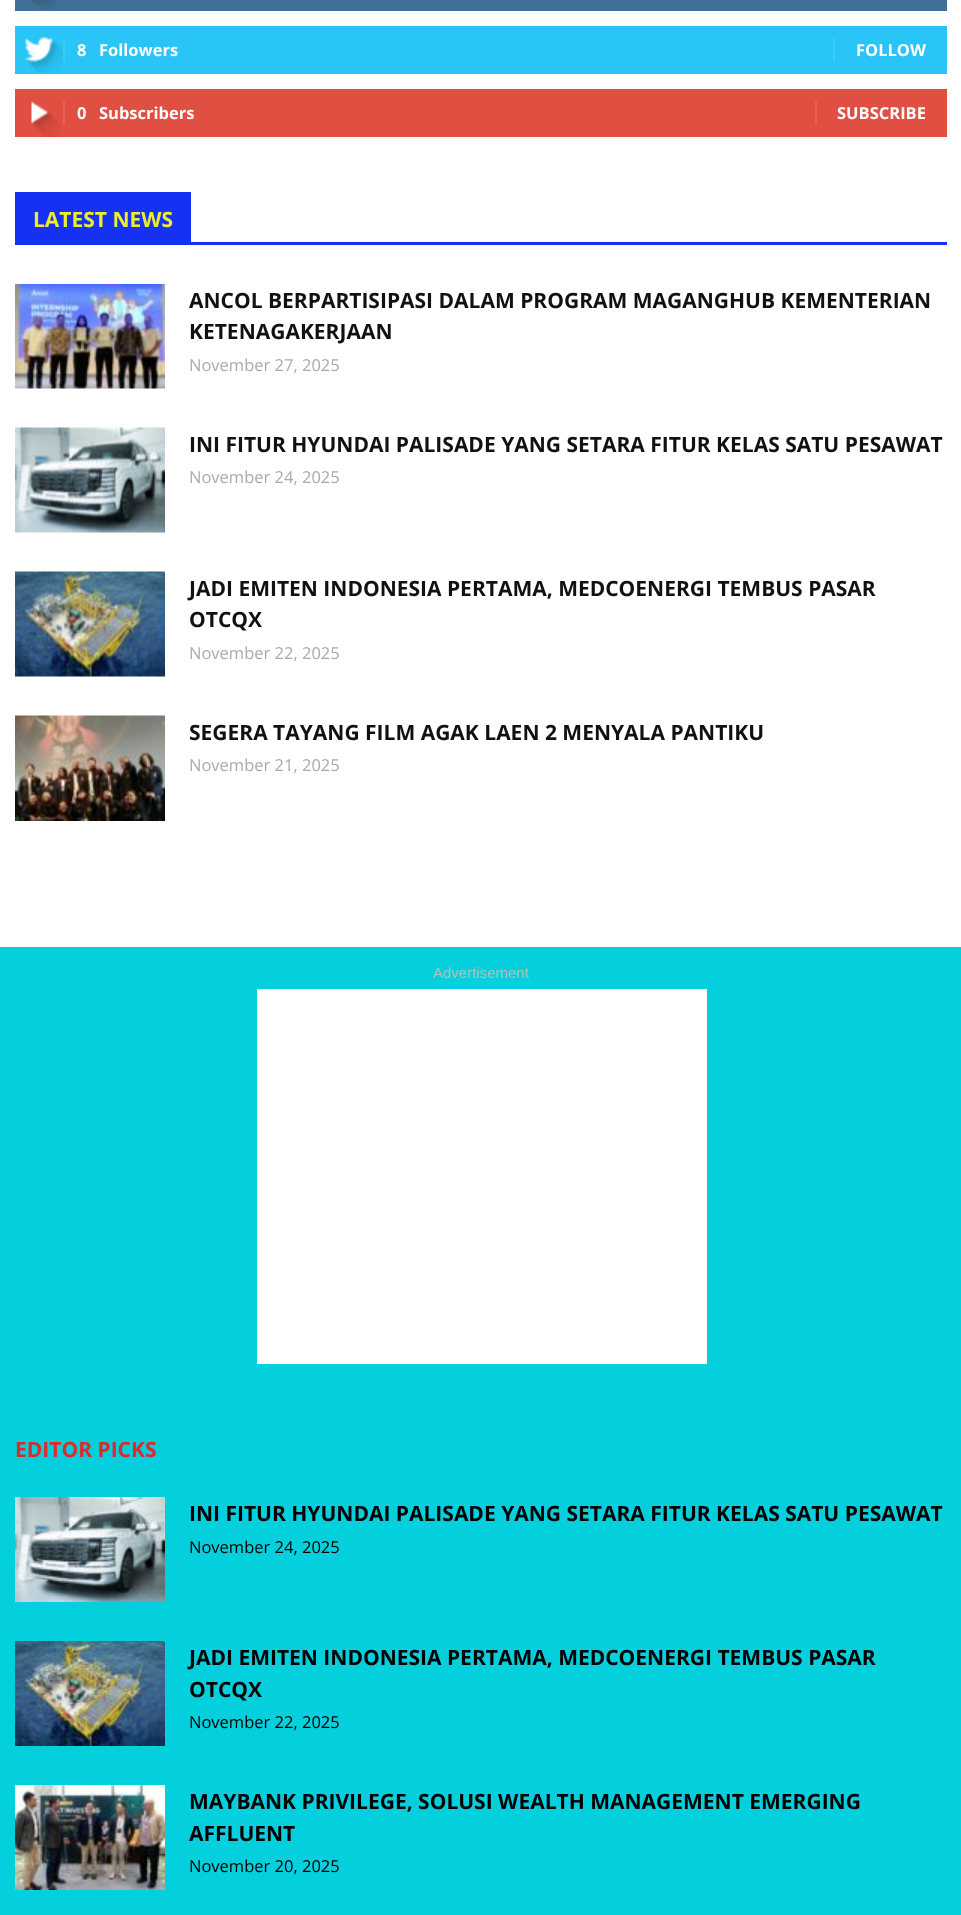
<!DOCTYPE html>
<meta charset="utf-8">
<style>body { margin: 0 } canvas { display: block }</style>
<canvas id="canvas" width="961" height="1915"></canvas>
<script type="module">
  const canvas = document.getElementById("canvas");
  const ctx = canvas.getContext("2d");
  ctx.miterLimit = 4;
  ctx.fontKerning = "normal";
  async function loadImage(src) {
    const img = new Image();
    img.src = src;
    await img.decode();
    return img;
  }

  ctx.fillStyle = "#ffffff";
  ctx.fillRect(0, 0, 961, 1915);
  ctx.fillStyle = "#417096";
  ctx.fillRect(15, 0, 932, 11);
  ctx.drawImage(await loadImage("img1.png"), 30, 0, 28, 10);
  ctx.fillStyle = "#29c5f6";
  ctx.fillRect(15, 26, 932, 48);
  ctx.drawImage(await loadImage("img2.png"), 24, 36, 39, 37);
  ctx.fillStyle = "#3ecbf7";
  ctx.fillRect(63, 38, 2, 24);
  ctx.font = "bold 16.5px Open Sans";
  ctx.fillStyle = "#ffffff";
  ctx.fillText("8", 77, 56);
  ctx.fillText("Followers", 99, 56);
  ctx.fillStyle = "#3ecbf7";
  ctx.fillRect(833, 38, 2, 24);
  ctx.fillStyle = "#ffffff";
  ctx.fillText("FOLLOW", 856, 56);
  ctx.fillStyle = "#e14e42";
  ctx.fillRect(15, 89, 932, 48);
  ctx.drawImage(await loadImage("img3.png"), 31, 101, 29, 36);
  ctx.fillStyle = "#e46055";
  ctx.fillRect(63, 101, 2, 24);
  ctx.fillStyle = "#ffffff";
  ctx.fillText("0", 77, 119);
  ctx.fillText("Subscribers", 99, 119);
  ctx.fillStyle = "#e46055";
  ctx.fillRect(815, 101, 2, 24);
  ctx.fillStyle = "#ffffff";
  ctx.fillText("SUBSCRIBE", 837, 119);
  ctx.fillStyle = "#1630f4";
  ctx.fillRect(15, 242, 932, 3);
  ctx.fillRect(15, 192, 176, 50);
  ctx.font = "bold 21px Open Sans";
  ctx.fillStyle = "#eded2f";
  ctx.fillText("LATEST NEWS", 33, 227);
  ctx.drawImage(await loadImage("img4.png"), 15, 284, 150, 105);
  ctx.fillStyle = "#111111";
  ctx.fillText("ANCOL BERPARTISIPASI DALAM PROGRAM MAGANGHUB KEMENTERIAN", 189, 308);
  ctx.fillText("KETENAGAKERJAAN", 189, 339);
  ctx.font = "16.5px Open Sans";
  ctx.fillStyle = "#aaaaaa";
  ctx.fillText("November 27, 2025", 189, 371);
  ctx.drawImage(await loadImage("img5.png"), 15, 427, 150, 106);
  ctx.font = "bold 21px Open Sans";
  ctx.fillStyle = "#111111";
  ctx.fillText("INI FITUR HYUNDAI PALISADE YANG SETARA FITUR KELAS SATU PESAWAT", 189, 452);
  ctx.font = "16.5px Open Sans";
  ctx.fillStyle = "#aaaaaa";
  ctx.fillText("November 24, 2025", 189, 483);
  ctx.drawImage(await loadImage("img6.png"), 15, 571, 150, 106);
  ctx.font = "bold 21px Open Sans";
  ctx.fillStyle = "#111111";
  ctx.fillText("JADI EMITEN INDONESIA PERTAMA, MEDCOENERGI TEMBUS PASAR", 189, 596);
  ctx.fillText("OTCQX", 189, 627);
  ctx.font = "16.5px Open Sans";
  ctx.fillStyle = "#aaaaaa";
  ctx.fillText("November 22, 2025", 189, 659);
  ctx.drawImage(await loadImage("img7.png"), 15, 715, 150, 106);
  ctx.font = "bold 21px Open Sans";
  ctx.fillStyle = "#111111";
  ctx.fillText("SEGERA TAYANG FILM AGAK LAEN 2 MENYALA PANTIKU", 189, 740);
  ctx.font = "16.5px Open Sans";
  ctx.fillStyle = "#aaaaaa";
  ctx.fillText("November 21, 2025", 189, 771);
  ctx.fillStyle = "#04cfdd";
  ctx.fillRect(0, 947, 961, 968);
  ctx.font = "15px Liberation Sans";
  ctx.fillStyle = "#bbbbbb";
  ctx.fillText("Advertisement", 433, 978);
  ctx.fillStyle = "#ffffff";
  ctx.fillRect(257, 989, 450, 375);
  ctx.font = "bold 21px Open Sans";
  ctx.fillStyle = "#dd2a2a";
  ctx.fillText("EDITOR PICKS", 15, 1457);
  ctx.drawImage(await loadImage("img8.png"), 15, 1497, 150, 105);
  ctx.fillStyle = "#000000";
  ctx.fillText("INI FITUR HYUNDAI PALISADE YANG SETARA FITUR KELAS SATU PESAWAT", 189, 1521);
  ctx.font = "16.5px Open Sans";
  ctx.fillText("November 24, 2025", 189, 1553);
  ctx.drawImage(await loadImage("img9.png"), 15, 1641, 150, 105);
  ctx.font = "bold 21px Open Sans";
  ctx.fillText("JADI EMITEN INDONESIA PERTAMA, MEDCOENERGI TEMBUS PASAR", 189, 1665);
  ctx.fillText("OTCQX", 189, 1697);
  ctx.font = "16.5px Open Sans";
  ctx.fillText("November 22, 2025", 189, 1728);
  ctx.drawImage(await loadImage("img10.png"), 15, 1785, 150, 105);
  ctx.font = "bold 21px Open Sans";
  ctx.fillText("MAYBANK PRIVILEGE, SOLUSI WEALTH MANAGEMENT EMERGING", 189, 1809);
  ctx.fillText("AFFLUENT", 189, 1841);
  ctx.font = "16.5px Open Sans";
  ctx.fillText("November 20, 2025", 189, 1872);
</script>
